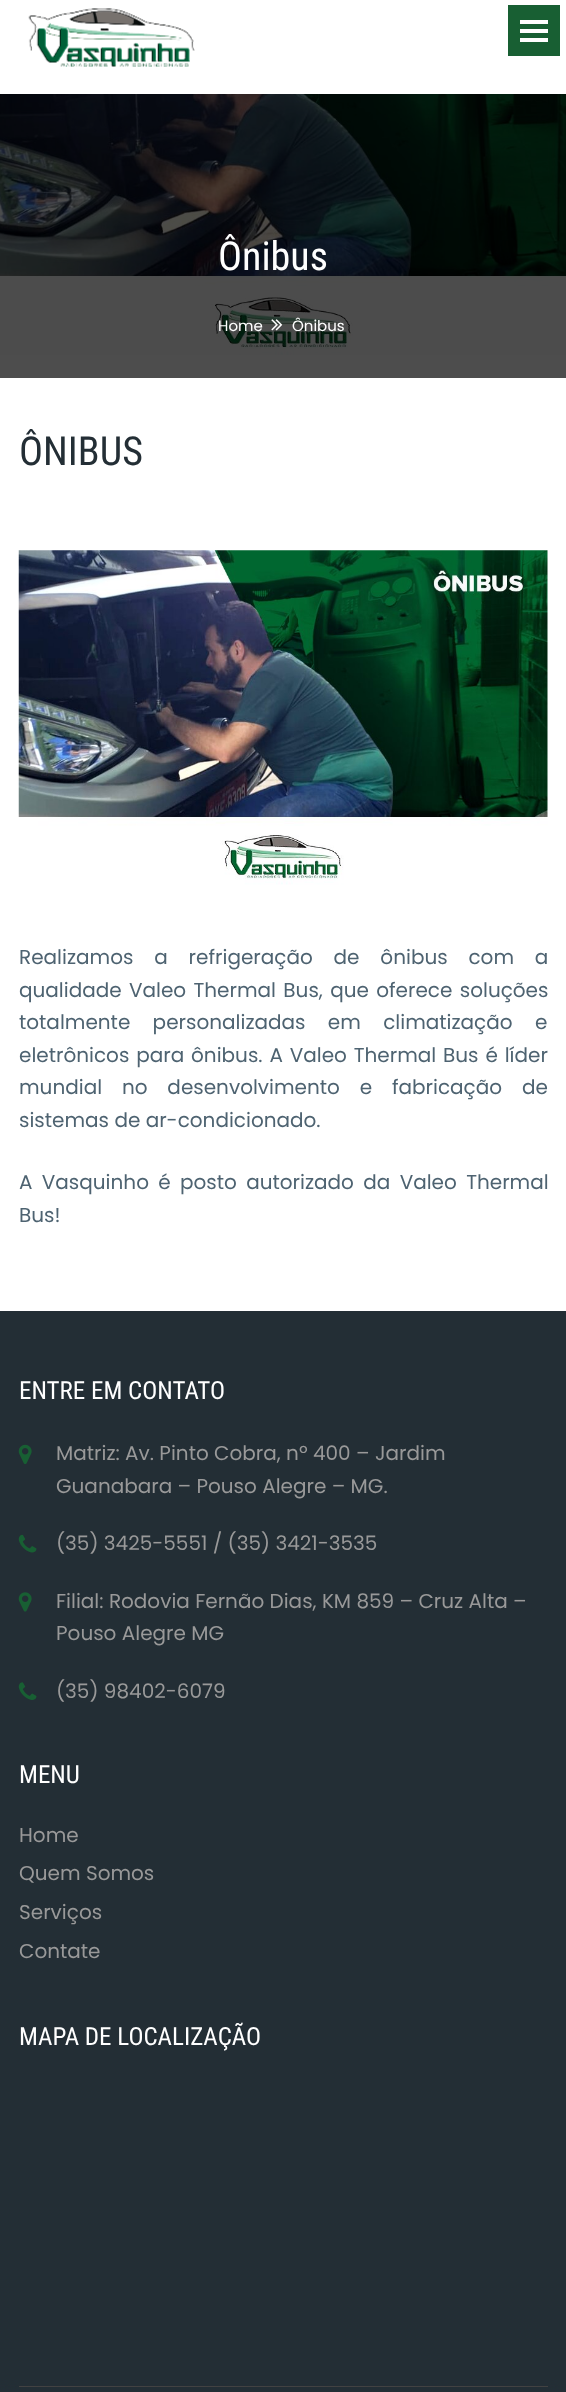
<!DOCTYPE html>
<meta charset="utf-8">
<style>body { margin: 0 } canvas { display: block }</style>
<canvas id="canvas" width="566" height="2392"></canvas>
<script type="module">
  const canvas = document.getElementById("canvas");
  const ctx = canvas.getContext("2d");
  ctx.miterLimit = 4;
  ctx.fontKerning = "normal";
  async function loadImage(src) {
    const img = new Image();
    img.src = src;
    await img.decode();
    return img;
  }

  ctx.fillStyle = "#ffffff";
  ctx.fillRect(0, 0, 566, 2392);
  ctx.fillStyle = "#4d4d4d";
  ctx.fillRect(0, 355, 566, 23);
  ctx.drawImage(await loadImage("img1.png"), 28, 8, 167, 59);
  ctx.fillStyle = "#185f33";
  ctx.fillRect(508, 5, 52, 51);
  ctx.fillStyle = "#ffffff";
  ctx.fillRect(520, 20, 28, 4);
  ctx.fillRect(520, 29, 28, 4);
  ctx.fillRect(520, 38, 28, 4);
  ctx.drawImage(await loadImage("img2.png"), 0, 94, 566, 261);
  ctx.font = "40px Roboto Condensed";
  ctx.fillText("Ônibus", 218, 270);
  ctx.font = "15px Poppins";
  ctx.fillText("Home", 218, 331);
  ctx.drawImage(await loadImage("img3.png"), 271, 319, 12, 12);
  ctx.fillText("Ônibus", 292, 331);
  ctx.font = "40px Roboto Condensed";
  ctx.fillStyle = "#232e35";
  ctx.fillText("ÔNIBUS", 19, 465);
  ctx.drawImage(await loadImage("img4.png"), 18, 550, 530, 335);
  ctx.wordSpacing = "15.5px";
  ctx.font = "20px Poppins";
  ctx.fillStyle = "#4e6371";
  ctx.fillText("Realizamos a refrigeração de ônibus com a", 19, 964);
  ctx.wordSpacing = "2px";
  ctx.fillText("qualidade Valeo Thermal Bus, que oferece soluções", 19, 997);
  ctx.wordSpacing = "17px";
  ctx.fillText("totalmente personalizadas em climatização e", 19, 1029);
  ctx.wordSpacing = "1.5px";
  ctx.fillText("eletrônicos para ônibus. A Valeo Thermal Bus é líder", 19, 1062);
  ctx.wordSpacing = "14.5px";
  ctx.fillText("mundial no desenvolvimento e fabricação de", 19, 1094);
  ctx.wordSpacing = "0px";
  ctx.fillText("sistemas de ar-condicionado.", 19, 1127);
  ctx.wordSpacing = "4px";
  ctx.fillText("A Vasquinho é posto autorizado da Valeo Thermal", 19, 1189);
  ctx.wordSpacing = "0px";
  ctx.fillText("Bus!", 19, 1222);
  ctx.fillStyle = "#232e35";
  ctx.fillRect(0, 1311, 566, 1081);
  ctx.font = "25px Roboto Condensed";
  ctx.fillStyle = "#ffffff";
  ctx.fillText("ENTRE EM CONTATO", 19, 1399);
  ctx.drawImage(await loadImage("img5.png"), 18, 1444, 14, 20);
  ctx.font = "20px Poppins";
  ctx.fillStyle = "#999999";
  ctx.fillText("Matriz: Av. Pinto Cobra, nº 400 – Jardim", 56, 1460);
  ctx.fillText("Guanabara – Pouso Alegre – MG.", 56, 1493);
  ctx.drawImage(await loadImage("img6.png"), 18, 1534, 19, 19);
  ctx.fillText("(35) 3425-5551 / (35) 3421-3535", 56, 1550);
  ctx.drawImage(await loadImage("img7.png"), 18, 1592, 14, 20);
  ctx.fillText("Filial: Rodovia Fernão Dias, KM 859 – Cruz Alta –", 56, 1608);
  ctx.fillText("Pouso Alegre MG", 56, 1640);
  ctx.drawImage(await loadImage("img8.png"), 18, 1682, 19, 18);
  ctx.fillText("(35) 98402-6079", 56, 1698);
  ctx.font = "25px Roboto Condensed";
  ctx.fillStyle = "#ffffff";
  ctx.fillText("MENU", 19, 1783);
  ctx.font = "20px Poppins";
  ctx.fillStyle = "#999999";
  ctx.fillText("Home", 19, 1842);
  ctx.fillText("Quem Somos", 19, 1880);
  ctx.fillText("Serviços", 19, 1919);
  ctx.fillText("Contate", 19, 1958);
  ctx.font = "25px Roboto Condensed";
  ctx.fillStyle = "#ffffff";
  ctx.fillText("MAPA DE LOCALIZAÇÃO", 19, 2045);
  ctx.fillStyle = "#424242";
  ctx.fillRect(19, 2386, 529, 1);
</script>
